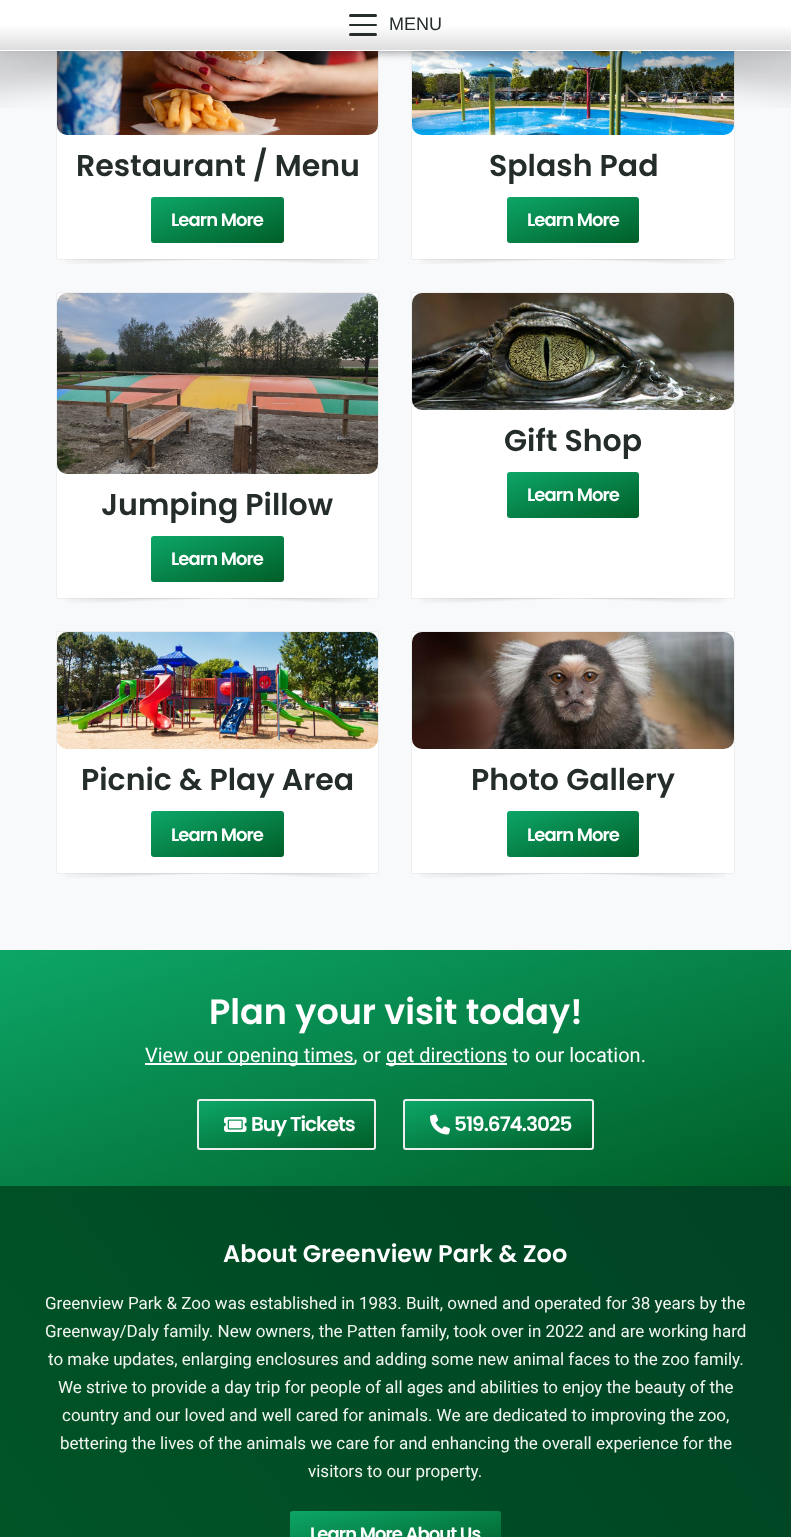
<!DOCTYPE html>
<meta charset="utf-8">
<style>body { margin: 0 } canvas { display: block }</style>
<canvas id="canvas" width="791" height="1537"></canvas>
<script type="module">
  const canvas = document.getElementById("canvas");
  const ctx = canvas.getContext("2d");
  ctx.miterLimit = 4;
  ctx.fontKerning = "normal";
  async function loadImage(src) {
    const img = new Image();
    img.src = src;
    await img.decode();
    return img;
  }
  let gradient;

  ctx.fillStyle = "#f8f9fb";
  ctx.fillRect(0, 0, 791, 1537);
  ctx.fillStyle = "#ffffff";
  ctx.beginPath();
  ctx.roundRect(56.5, 17.5, 322, 242, 1.5);
  ctx.fill();
  ctx.strokeStyle = "#eeeeee";
  ctx.stroke();
  ctx.drawImage(await loadImage("img2.png"), 57, 51, 321, 84);
  ctx.beginPath();
  ctx.roundRect(411.5, 17.5, 323, 242, 1.5);
  ctx.fill();
  ctx.stroke();
  ctx.drawImage(await loadImage("img4.png"), 412, 51, 322, 84);
  ctx.fillStyle = "rgba(44, 62, 80, 0.05)";
  ctx.filter = "blur(3.5px)";
  ctx.beginPath();
  ctx.rect(0, 4, 791, 51);
  ctx.fill();
  ctx.filter = "none";
  gradient = ctx.createLinearGradient(396, 0, 396, 50);
  gradient.addColorStop(0.5, "#ffffff");
  gradient.addColorStop(1, "#dddddd");
  ctx.fillStyle = gradient;
  ctx.fillRect(0, 0, 791, 50);
  ctx.fillStyle = "#242d29";
  ctx.beginPath();
  ctx.roundRect(349, 14, 28, 3, 1.5);
  ctx.fill();
  ctx.beginPath();
  ctx.roundRect(349, 24, 28, 2, 1);
  ctx.fill();
  ctx.beginPath();
  ctx.roundRect(349, 33, 28, 3, 1.5);
  ctx.fill();
  ctx.font = "18px Liberation Sans";
  ctx.fillText("MENU", 389, 30);
  ctx.drawImage(await loadImage("img1.png"), 0, 51, 791, 57);
  ctx.fillStyle = "#ffffff";
  ctx.fillRect(0, 50, 791, 1);
  ctx.font = "600 30px Poppins";
  ctx.fillStyle = "#242d29";
  ctx.fillText("Restaurant / Menu", 76, 176);
  gradient = ctx.createLinearGradient(203, 179, 232, 261);
  gradient.addColorStop(0, "#0da668");
  gradient.addColorStop(1, "#005e28");
  ctx.fillStyle = gradient;
  ctx.beginPath();
  ctx.roundRect(151, 197, 133, 46, 3);
  ctx.fill();
  ctx.letterSpacing = "-0.9px";
  ctx.font = "600 18px Poppins";
  ctx.fillStyle = "#ffffff";
  ctx.fillText("Learn More", 171, 226);
  ctx.drawImage(await loadImage("img3.png"), 65, 259, 304, 5);
  ctx.letterSpacing = "0px";
  ctx.font = "600 30px Poppins";
  ctx.fillStyle = "#242d29";
  ctx.fillText("Splash Pad", 489, 176);
  gradient = ctx.createLinearGradient(559, 179, 587, 261);
  gradient.addColorStop(0, "#0da668");
  gradient.addColorStop(1, "#005e28");
  ctx.fillStyle = gradient;
  ctx.beginPath();
  ctx.roundRect(507, 197, 132, 46, 3);
  ctx.fill();
  ctx.letterSpacing = "-0.9px";
  ctx.font = "600 18px Poppins";
  ctx.fillStyle = "#ffffff";
  ctx.fillText("Learn More", 527, 226);
  ctx.drawImage(await loadImage("img5.png"), 420, 259, 305, 5);
  ctx.beginPath();
  ctx.roundRect(411.5, 292.5, 323, 306, 1.5);
  ctx.fill();
  ctx.stroke();
  ctx.drawImage(await loadImage("img6.png"), 412, 293, 322, 117);
  ctx.letterSpacing = "0px";
  ctx.font = "600 30px Poppins";
  ctx.fillStyle = "#242d29";
  ctx.fillText("Gift Shop", 504, 451);
  gradient = ctx.createLinearGradient(559, 454, 587, 536);
  gradient.addColorStop(0, "#0da668");
  gradient.addColorStop(1, "#005e28");
  ctx.fillStyle = gradient;
  ctx.beginPath();
  ctx.roundRect(507, 472, 132, 46, 3);
  ctx.fill();
  ctx.letterSpacing = "-0.9px";
  ctx.font = "600 18px Poppins";
  ctx.fillStyle = "#ffffff";
  ctx.fillText("Learn More", 527, 501);
  ctx.drawImage(await loadImage("img5.png"), 420, 598, 305, 5);
  ctx.beginPath();
  ctx.roundRect(56.5, 292.5, 322, 306, 1.5);
  ctx.fill();
  ctx.stroke();
  ctx.drawImage(await loadImage("img7.png"), 57, 293, 321, 181);
  ctx.letterSpacing = "0px";
  ctx.font = "600 30px Poppins";
  ctx.fillStyle = "#242d29";
  ctx.fillText("Jumping Pillow", 101, 515);
  gradient = ctx.createLinearGradient(203, 518, 232, 600);
  gradient.addColorStop(0, "#0da668");
  gradient.addColorStop(1, "#005e28");
  ctx.fillStyle = gradient;
  ctx.beginPath();
  ctx.roundRect(151, 536, 133, 46, 3);
  ctx.fill();
  ctx.letterSpacing = "-0.9px";
  ctx.font = "600 18px Poppins";
  ctx.fillStyle = "#ffffff";
  ctx.fillText("Learn More", 171, 565);
  ctx.drawImage(await loadImage("img3.png"), 65, 598, 304, 5);
  ctx.beginPath();
  ctx.roundRect(56.5, 631.5, 322, 242, 1.5);
  ctx.fill();
  ctx.stroke();
  ctx.drawImage(await loadImage("img8.png"), 57, 632, 321, 117);
  ctx.letterSpacing = "0px";
  ctx.font = "600 30px Poppins";
  ctx.fillStyle = "#242d29";
  ctx.fillText("Picnic & Play Area", 81, 790);
  gradient = ctx.createLinearGradient(203, 793, 232, 875);
  gradient.addColorStop(0, "#0da668");
  gradient.addColorStop(1, "#005e28");
  ctx.fillStyle = gradient;
  ctx.beginPath();
  ctx.roundRect(151, 811, 133, 46, 3);
  ctx.fill();
  ctx.letterSpacing = "-0.9px";
  ctx.font = "600 18px Poppins";
  ctx.fillStyle = "#ffffff";
  ctx.fillText("Learn More", 171, 841);
  ctx.drawImage(await loadImage("img3.png"), 65, 873, 304, 5);
  ctx.beginPath();
  ctx.roundRect(411.5, 631.5, 323, 242, 1.5);
  ctx.fill();
  ctx.stroke();
  ctx.drawImage(await loadImage("img9.png"), 412, 632, 322, 117);
  ctx.letterSpacing = "0px";
  ctx.font = "600 30px Poppins";
  ctx.fillStyle = "#242d29";
  ctx.fillText("Photo Gallery", 471, 790);
  gradient = ctx.createLinearGradient(559, 793, 587, 875);
  gradient.addColorStop(0, "#0da668");
  gradient.addColorStop(1, "#005e28");
  ctx.fillStyle = gradient;
  ctx.beginPath();
  ctx.roundRect(507, 811, 132, 46, 3);
  ctx.fill();
  ctx.letterSpacing = "-0.9px";
  ctx.font = "600 18px Poppins";
  ctx.fillStyle = "#ffffff";
  ctx.fillText("Learn More", 527, 841);
  ctx.drawImage(await loadImage("img5.png"), 420, 873, 305, 5);
  gradient = ctx.createLinearGradient(331, 851, 460, 1285);
  gradient.addColorStop(0, "#0da668");
  gradient.addColorStop(1, "#005e28");
  ctx.fillStyle = gradient;
  ctx.fillRect(0, 950, 791, 236);
  ctx.letterSpacing = "0px";
  ctx.font = "600 35px Poppins";
  ctx.fillStyle = "#ffffff";
  ctx.fillText("Plan your visit today!", 209, 1024);
  ctx.fillRect(145, 1063, 209, 2);
  ctx.font = "20px Roboto";
  ctx.fillText("View our opening times, or", 145, 1062);
  ctx.fillRect(386, 1063, 121, 2);
  ctx.fillText("get directions to our location.", 386, 1062);
  gradient = ctx.createLinearGradient(275, 1081, 298, 1168);
  gradient.addColorStop(0, "#0da668");
  gradient.addColorStop(1, "#005e28");
  ctx.fillStyle = gradient;
  ctx.fillRect(199, 1101, 175, 47);
  ctx.beginPath();
  ctx.roundRect(198, 1100, 177, 49, 2);
  ctx.lineWidth = 2;
  ctx.stroke();
  ctx.drawImage(await loadImage("img10.png"), 224, 1117, 23, 15);
  ctx.letterSpacing = "-1px";
  ctx.font = "600 20px Poppins";
  ctx.fillStyle = "#ffffff";
  ctx.fillText("Buy Tickets", 251, 1131);
  gradient = ctx.createLinearGradient(487, 1080, 510, 1169);
  gradient.addColorStop(0, "#0da668");
  gradient.addColorStop(1, "#005e28");
  ctx.fillStyle = gradient;
  ctx.fillRect(405, 1101, 187, 47);
  ctx.beginPath();
  ctx.roundRect(404, 1100, 189, 49, 2);
  ctx.stroke();
  ctx.drawImage(await loadImage("img11.png"), 430, 1114, 20, 21);
  ctx.fillStyle = "#ffffff";
  ctx.fillText("519.674.3025", 454, 1131);
  gradient = ctx.createLinearGradient(-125, 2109, 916, 1359);
  gradient.addColorStop(0, "#005e28");
  gradient.addColorStop(1, "#004224");
  ctx.fillStyle = gradient;
  ctx.fillRect(0, 1186, 791, 351);
  ctx.letterSpacing = "0px";
  ctx.font = "600 24px Poppins";
  ctx.fillStyle = "#ffffff";
  ctx.fillText("About Greenview Park & Zoo", 223, 1262);
  ctx.font = "17px Roboto";
  ctx.fillStyle = "#f0f5f0";
  ctx.fillText("Greenview Park & Zoo was established in 1983. Built, owned and operated for 38 years by the", 45, 1309);
  ctx.fillText("Greenway/Daly family. New owners, the Patten family, took over in 2022 and are working hard", 45, 1337);
  ctx.fillText("to make updates, enlarging enclosures and adding some new animal faces to the zoo family.", 48, 1365);
  ctx.fillText("We strive to provide a day trip for people of all ages and abilities to enjoy the beauty of the", 58, 1393);
  ctx.fillText("country and our loved and well cared for animals. We are dedicated to improving the zoo,", 62, 1421);
  ctx.fillText("bettering the lives of the animals we care for and enhancing the overall experience for the", 60, 1449);
  ctx.fillText("visitors to our property.", 308, 1477);
  gradient = ctx.createLinearGradient(386, 1490, 405, 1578);
  gradient.addColorStop(0, "#0da668");
  gradient.addColorStop(1, "#005e28");
  ctx.fillStyle = gradient;
  ctx.beginPath();
  ctx.roundRect(290, 1511, 211, 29, 3);
  ctx.fill();
  ctx.letterSpacing = "-0.9px";
  ctx.font = "600 18px Poppins";
  ctx.fillStyle = "#ffffff";
  ctx.fillText("Learn More About Us", 310, 1540);
</script>
